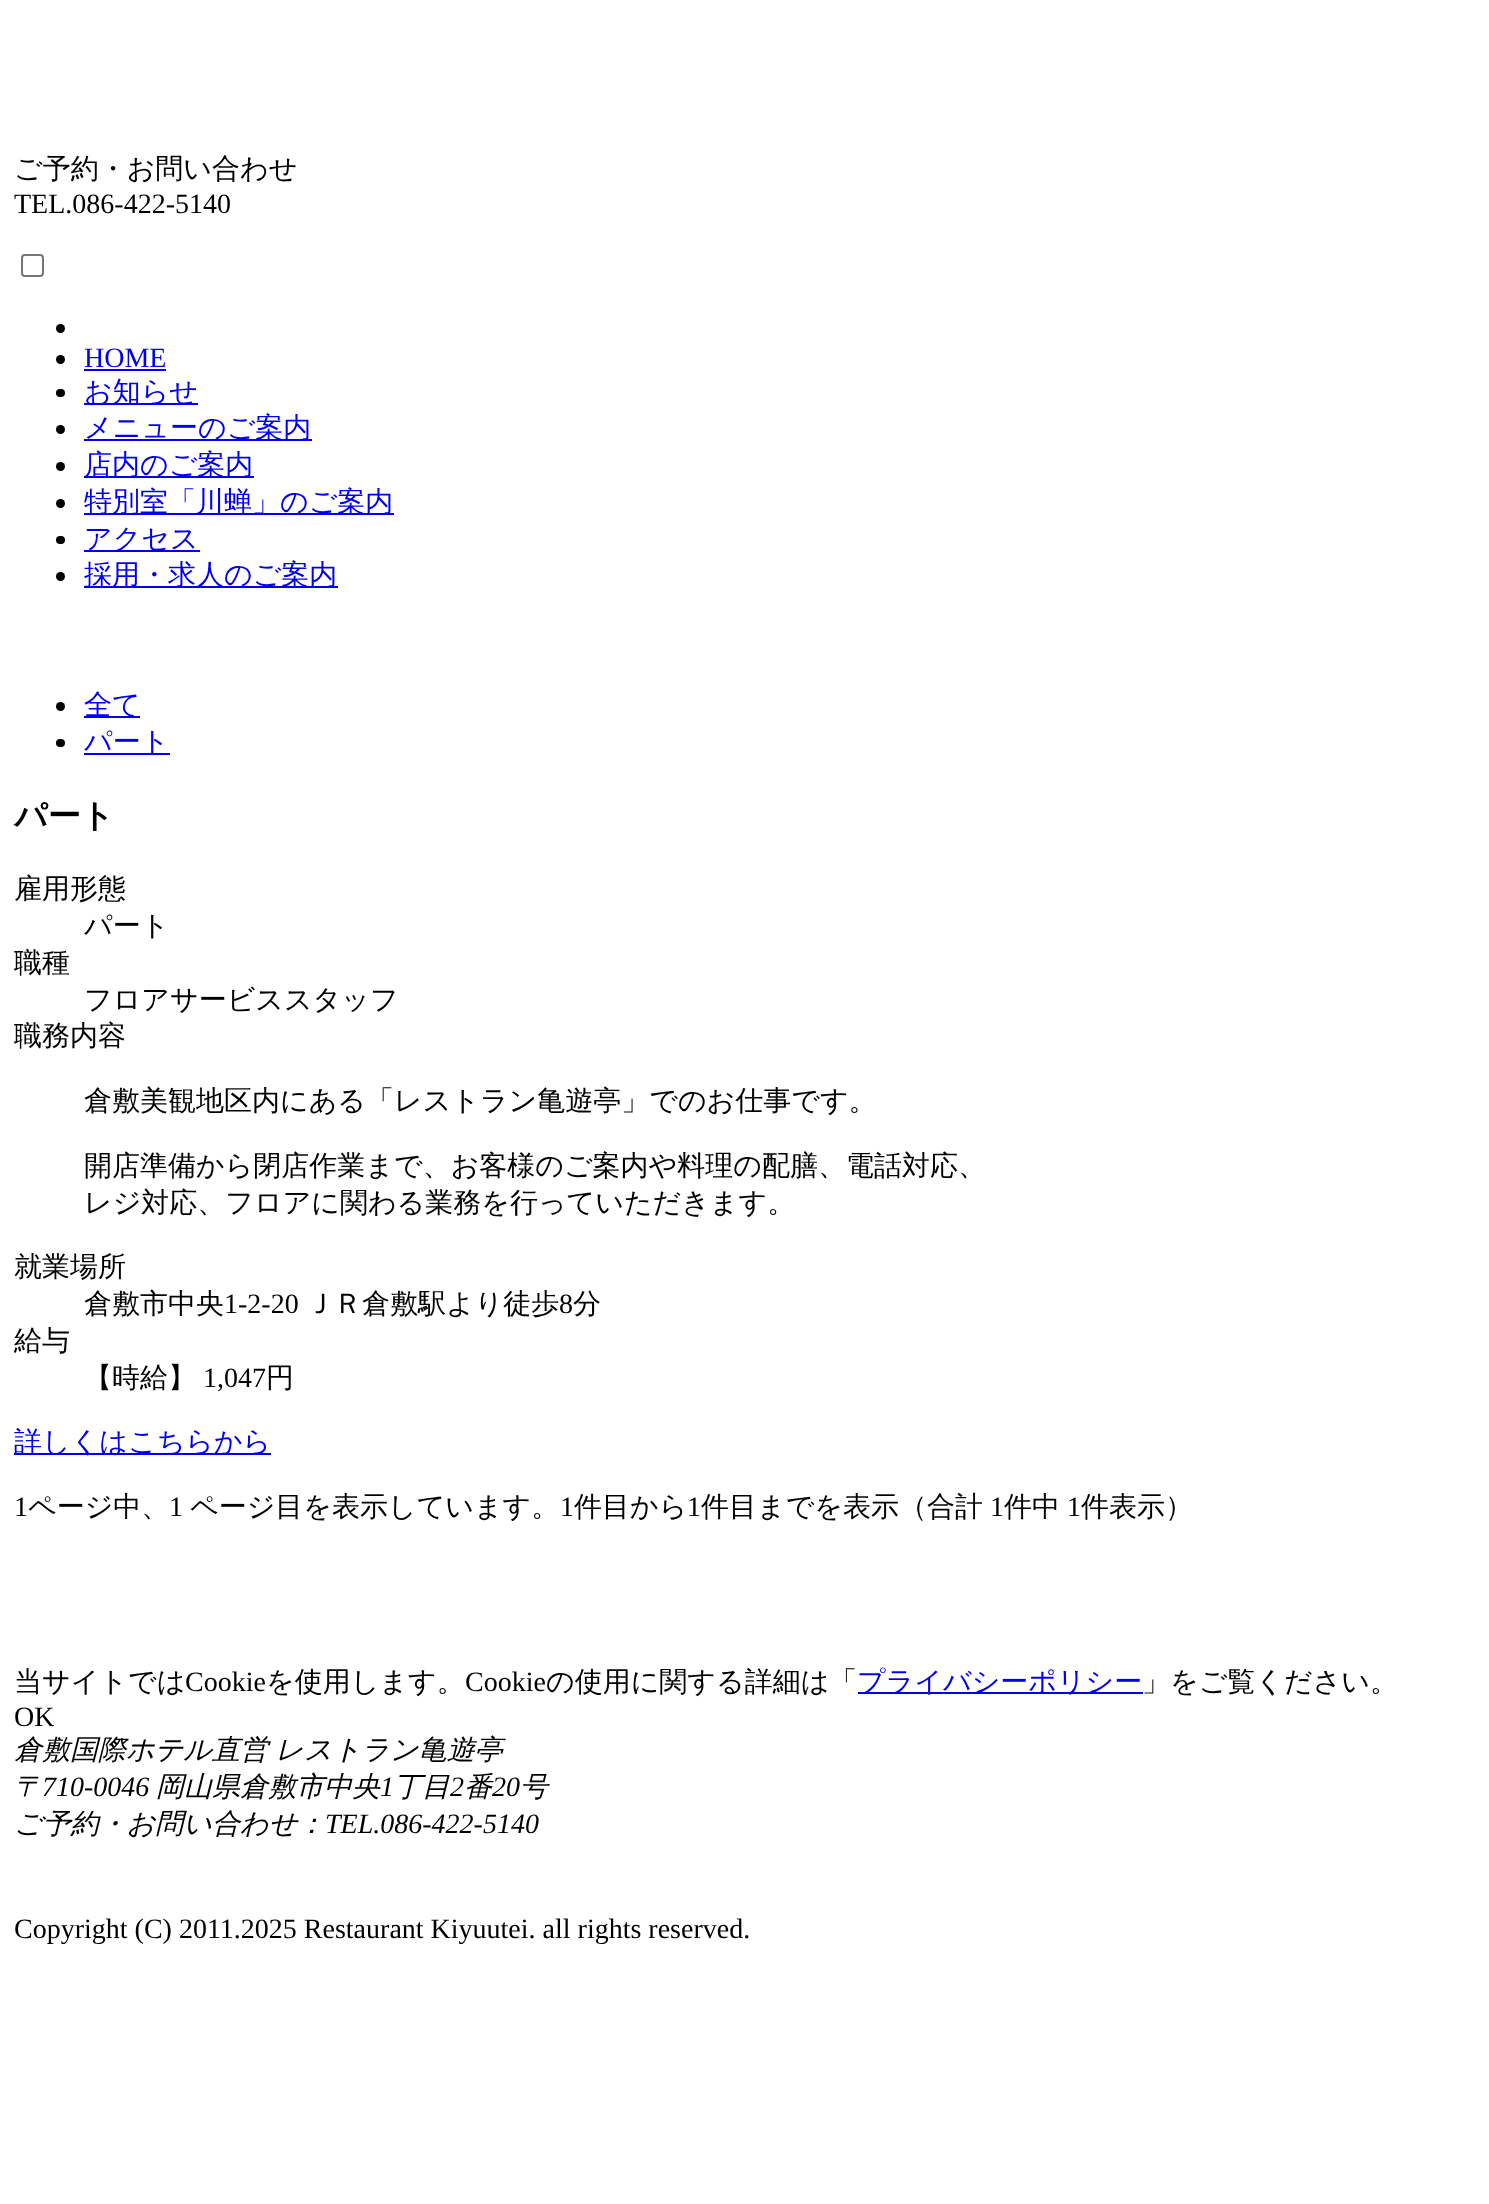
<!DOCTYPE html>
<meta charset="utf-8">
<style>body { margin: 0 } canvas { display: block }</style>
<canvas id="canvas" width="1489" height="2204"></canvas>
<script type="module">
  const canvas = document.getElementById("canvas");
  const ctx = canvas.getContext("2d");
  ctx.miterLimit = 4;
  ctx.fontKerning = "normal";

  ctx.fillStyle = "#ffffff";
  ctx.fillRect(0, 0, 1489, 2204);
  ctx.font = "500 28px WenQuanYi Zen Hei";
  ctx.fillStyle = "#000000";
  ctx.fillText("ご予約・お問い合わせ", 14, 178);
  ctx.font = "28px Liberation Serif";
  ctx.fillText("TEL.086-422-5140", 14, 213);
  ctx.beginPath();
  ctx.roundRect(22, 255, 21, 21, 3);
  ctx.strokeStyle = "#767676";
  ctx.lineWidth = 2;
  ctx.stroke();
  ctx.beginPath();
  ctx.arc(60.5, 328.5, 4.5, 0, Math.PI * 2);
  ctx.fill();
  ctx.beginPath();
  ctx.arc(60.5, 359.5, 4.5, 0, Math.PI * 2);
  ctx.fill();
  ctx.fillStyle = "#0000ee";
  ctx.fillText("HOME", 84, 367);
  ctx.fillRect(84, 369, 82, 2);
  ctx.fillStyle = "#000000";
  ctx.beginPath();
  ctx.roundRect(56, 389, 9, 8, 4);
  ctx.fill();
  ctx.fillStyle = "#0000ee";
  ctx.fillRect(84, 403, 114, 2);
  ctx.font = "500 28px WenQuanYi Zen Hei";
  ctx.fillText("お知らせ", 84, 401);
  ctx.fillStyle = "#000000";
  ctx.beginPath();
  ctx.arc(60.5, 429.5, 4.5, 0, Math.PI * 2);
  ctx.fill();
  ctx.fillStyle = "#0000ee";
  ctx.fillRect(84, 439, 228, 2);
  ctx.fillText("メニューのご案内", 84, 437);
  ctx.fillStyle = "#000000";
  ctx.beginPath();
  ctx.arc(60.5, 466.5, 4.5, 0, Math.PI * 2);
  ctx.fill();
  ctx.fillStyle = "#0000ee";
  ctx.fillRect(84, 476, 170, 2);
  ctx.fillText("店内のご案内", 84, 474);
  ctx.fillStyle = "#000000";
  ctx.beginPath();
  ctx.arc(60.5, 503.5, 4.5, 0, Math.PI * 2);
  ctx.fill();
  ctx.fillStyle = "#0000ee";
  ctx.fillRect(84, 513, 310, 2);
  ctx.fillText("特別室「川蝉」のご案内", 84, 511);
  ctx.fillStyle = "#000000";
  ctx.beginPath();
  ctx.roundRect(56, 536, 9, 8, 4);
  ctx.fill();
  ctx.fillStyle = "#0000ee";
  ctx.fillRect(84, 550, 116, 2);
  ctx.fillText("アクセス", 84, 548);
  ctx.fillStyle = "#000000";
  ctx.beginPath();
  ctx.arc(60.5, 576.5, 4.5, 0, Math.PI * 2);
  ctx.fill();
  ctx.fillStyle = "#0000ee";
  ctx.fillRect(84, 586, 254, 2);
  ctx.fillText("採用・求人のご案内", 84, 584);
  ctx.fillStyle = "#000000";
  ctx.beginPath();
  ctx.arc(60.5, 706.5, 4.5, 0, Math.PI * 2);
  ctx.fill();
  ctx.fillStyle = "#0000ee";
  ctx.fillRect(84, 716, 56, 2);
  ctx.fillText("全て", 84, 714);
  ctx.fillStyle = "#000000";
  ctx.beginPath();
  ctx.roundRect(56, 739, 9, 8, 4);
  ctx.fill();
  ctx.fillStyle = "#0000ee";
  ctx.fillRect(84, 753, 86, 2);
  ctx.fillText("パート", 84, 751);
  ctx.font = "bold 33px WenQuanYi Zen Hei";
  ctx.fillStyle = "#000000";
  ctx.fillText("パート", 14, 827);
  ctx.font = "500 28px WenQuanYi Zen Hei";
  ctx.fillText("雇用形態", 14, 898);
  ctx.fillText("パート", 84, 935);
  ctx.fillText("職種", 14, 972);
  ctx.fillText("フロアサービススタッフ", 84, 1009);
  ctx.fillText("職務内容", 14, 1045);
  ctx.fillText("倉敷美観地区内にある「レストラン亀遊亭」でのお仕事です。", 84, 1110);
  ctx.fillText("開店準備から閉店作業まで、お客様のご案内や料理の配膳、電話対応、", 84, 1175);
  ctx.fillText("レジ対応、フロアに関わる業務を行っていただきます。", 84, 1212);
  ctx.fillText("就業場所", 14, 1276);
  ctx.fillText("倉敷市中央", 84, 1313);
  ctx.font = "28px Liberation Serif";
  ctx.fillText("1-2-20", 224, 1313);
  ctx.font = "500 28px WenQuanYi Zen Hei";
  ctx.fillText("ＪＲ倉敷駅より徒歩", 306, 1313);
  ctx.font = "28px Liberation Serif";
  ctx.fillText("8", 559, 1313);
  ctx.font = "500 28px WenQuanYi Zen Hei";
  ctx.fillText("分", 573, 1313);
  ctx.fillText("給与", 14, 1350);
  ctx.fillText("【時給】", 84, 1387);
  ctx.font = "28px Liberation Serif";
  ctx.fillText("1,047", 203, 1387);
  ctx.font = "500 28px WenQuanYi Zen Hei";
  ctx.fillText("円", 266, 1387);
  ctx.fillStyle = "#0000ee";
  ctx.fillRect(14, 1453, 257, 2);
  ctx.fillText("詳しくはこちらから", 14, 1451);
  ctx.font = "28px Liberation Serif";
  ctx.fillStyle = "#000000";
  ctx.fillText("1", 14, 1516);
  ctx.font = "500 28px WenQuanYi Zen Hei";
  ctx.fillText("ページ中、", 28, 1516);
  ctx.font = "28px Liberation Serif";
  ctx.fillText("1", 169, 1516);
  ctx.font = "500 28px WenQuanYi Zen Hei";
  ctx.fillText("ページ目を表示しています。", 190, 1516);
  ctx.font = "28px Liberation Serif";
  ctx.fillText("1", 560, 1516);
  ctx.font = "500 28px WenQuanYi Zen Hei";
  ctx.fillText("件目から", 574, 1516);
  ctx.font = "28px Liberation Serif";
  ctx.fillText("1", 687, 1516);
  ctx.font = "500 28px WenQuanYi Zen Hei";
  ctx.fillText("件目までを表示（合計", 701, 1516);
  ctx.font = "28px Liberation Serif";
  ctx.fillText("1", 990, 1516);
  ctx.font = "500 28px WenQuanYi Zen Hei";
  ctx.fillText("件中", 1004, 1516);
  ctx.font = "28px Liberation Serif";
  ctx.fillText("1", 1067, 1516);
  ctx.font = "500 28px WenQuanYi Zen Hei";
  ctx.fillText("件表示）", 1081, 1516);
  ctx.fillText("当サイトでは", 14, 1691);
  ctx.font = "28px Liberation Serif";
  ctx.fillText("Cookie", 185, 1691);
  ctx.font = "500 28px WenQuanYi Zen Hei";
  ctx.fillText("を使用します。", 266, 1691);
  ctx.font = "28px Liberation Serif";
  ctx.fillText("Cookie", 465, 1691);
  ctx.font = "500 28px WenQuanYi Zen Hei";
  ctx.fillText("の使用に関する詳細は「", 546, 1691);
  ctx.fillStyle = "#0000ee";
  ctx.fillRect(858, 1692, 285, 2);
  ctx.fillText("プライバシーポリシー", 857, 1691);
  ctx.fillStyle = "#000000";
  ctx.fillText("」をご覧ください。", 1142, 1691);
  ctx.font = "28px Liberation Serif";
  ctx.fillText("OK", 14, 1726);
  ctx.wordSpacing = "-1px";
  ctx.font = "italic 500 28px WenQuanYi Zen Hei";
  ctx.fillText("倉敷国際ホテル直営 レストラン亀遊亭", 14, 1759);
  ctx.wordSpacing = "0px";
  ctx.fillText("〒", 14, 1796);
  ctx.font = "italic 28px Liberation Serif";
  ctx.fillText("710-0046", 42, 1796);
  ctx.font = "italic 500 28px WenQuanYi Zen Hei";
  ctx.fillText("岡山県倉敷市中央", 156, 1796);
  ctx.font = "italic 28px Liberation Serif";
  ctx.fillText("1", 380, 1796);
  ctx.font = "italic 500 28px WenQuanYi Zen Hei";
  ctx.fillText("丁目", 394, 1796);
  ctx.font = "italic 28px Liberation Serif";
  ctx.fillText("2", 450, 1796);
  ctx.font = "italic 500 28px WenQuanYi Zen Hei";
  ctx.fillText("番", 464, 1796);
  ctx.font = "italic 28px Liberation Serif";
  ctx.fillText("20", 492, 1796);
  ctx.font = "italic 500 28px WenQuanYi Zen Hei";
  ctx.fillText("号", 520, 1796);
  ctx.fillText("ご予約・お問い合わせ：", 14, 1833);
  ctx.font = "italic 28px Liberation Serif";
  ctx.fillText("TEL.086-422-5140", 325, 1833);
  ctx.font = "28px Liberation Serif";
  ctx.fillText("Copyright (C) 2011.2025 Restaurant Kiyuutei. all rights reserved.", 14, 1938);
</script>
